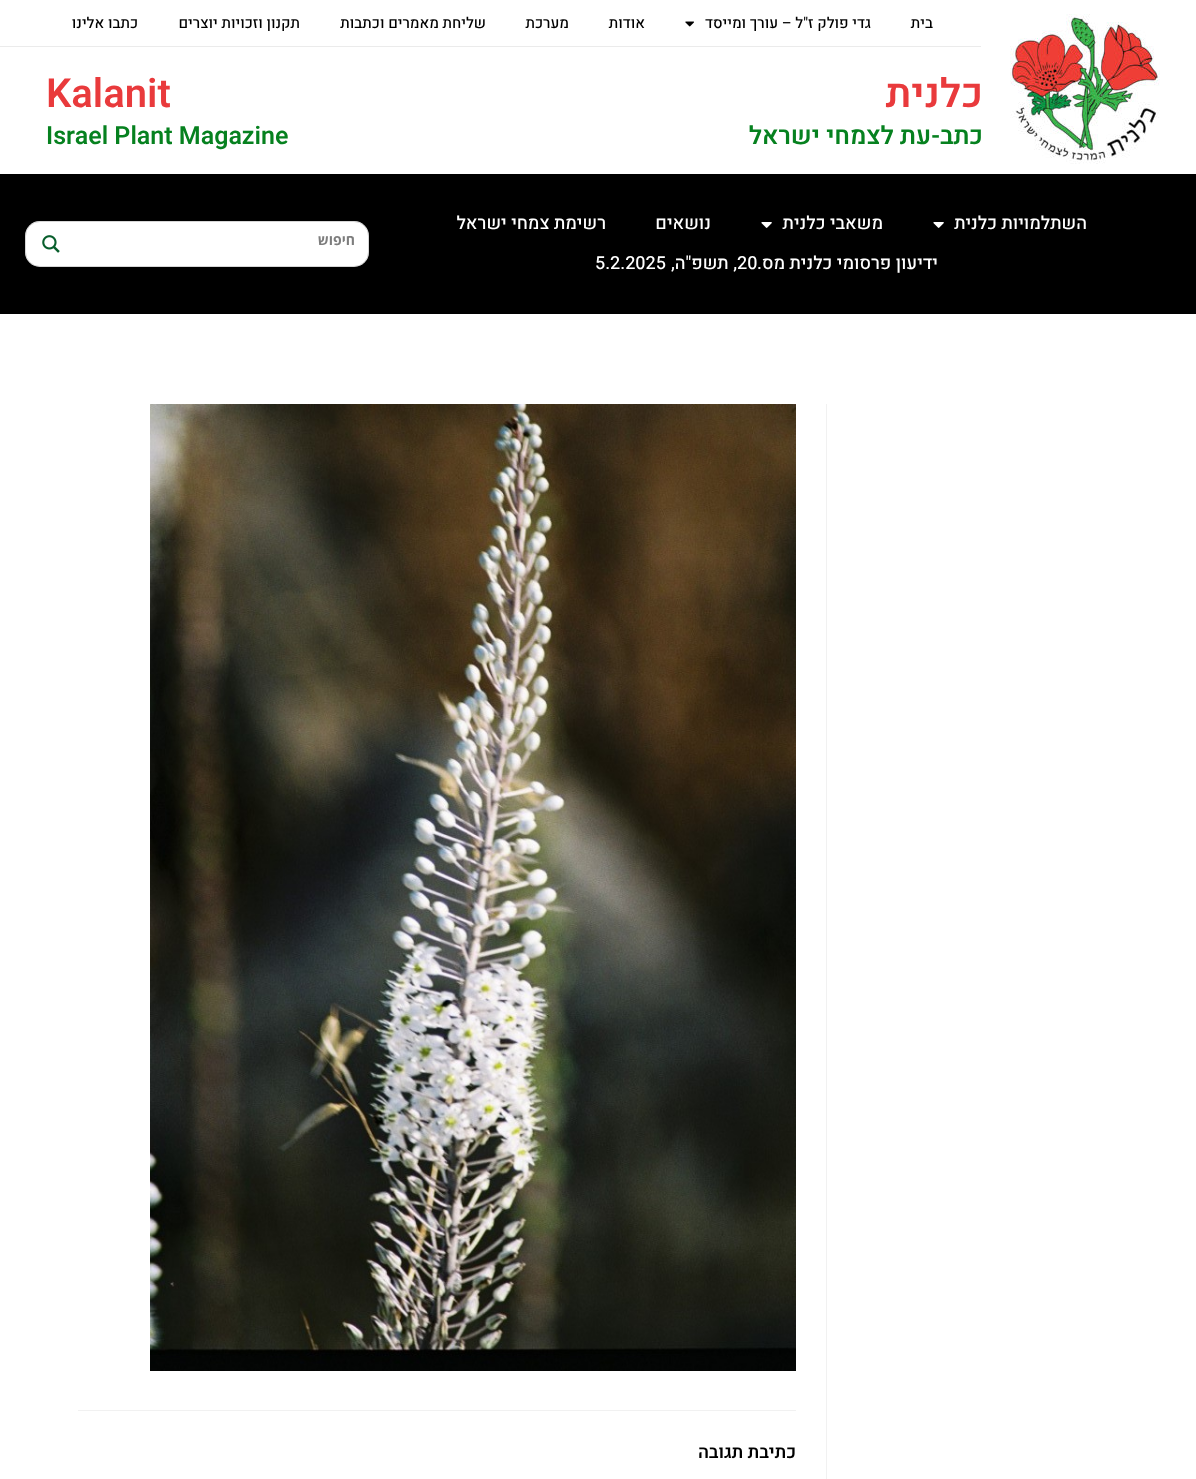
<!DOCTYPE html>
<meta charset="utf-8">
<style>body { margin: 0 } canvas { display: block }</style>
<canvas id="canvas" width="1196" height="1479"></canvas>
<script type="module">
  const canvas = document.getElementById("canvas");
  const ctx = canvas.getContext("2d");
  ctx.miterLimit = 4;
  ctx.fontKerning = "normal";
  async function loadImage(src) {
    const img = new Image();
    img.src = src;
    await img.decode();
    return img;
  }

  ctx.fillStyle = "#ffffff";
  ctx.fillRect(0, 0, 1196, 1479);
  ctx.fillStyle = "#ebebeb";
  ctx.fillRect(0, 46, 981, 1);
  ctx.direction = "rtl";
  ctx.font = "500 15px Heebo";
  ctx.fillStyle = "#000000";
  ctx.fillText("בית", 933, 28);
  ctx.fillText("גדי פולק ז\"ל – עורך ומייסד", 871, 28);
  ctx.drawImage(await loadImage("img1.png"), 685, 21, 9, 6);
  ctx.fillText("אודות", 645, 28);
  ctx.fillText("מערכת", 569, 28);
  ctx.fillText("שליחת מאמרים וכתבות", 486, 28);
  ctx.fillText("תקנון וזכויות יוצרים", 300, 28);
  ctx.fillText("כתבו אלינו", 138, 28);
  ctx.drawImage(await loadImage("img2.png"), 1010, 14, 150, 150);
  ctx.font = "600 40px Heebo";
  ctx.fillStyle = "#e93a3c";
  ctx.fillText("כלנית", 983, 107);
  ctx.font = "600 25px Heebo";
  ctx.fillStyle = "#06811f";
  ctx.fillText("כתב-עת לצמחי ישראל", 983, 144);
  ctx.direction = "ltr";
  ctx.font = "600 40px Heebo";
  ctx.fillStyle = "#e93a3c";
  ctx.fillText("Kalanit", 46, 107);
  ctx.font = "600 25px Heebo";
  ctx.fillStyle = "#06811f";
  ctx.fillText("Israel Plant Magazine", 46, 144);
  ctx.fillStyle = "#000000";
  ctx.fillRect(0, 174, 1196, 140);
  ctx.direction = "rtl";
  ctx.font = "500 18px Heebo";
  ctx.fillStyle = "#ffffff";
  ctx.fillText("השתלמויות כלנית", 1087, 229);
  ctx.drawImage(await loadImage("img3.png"), 933, 222, 11, 6);
  ctx.fillText("משאבי כלנית", 883, 229);
  ctx.drawImage(await loadImage("img3.png"), 761, 222, 11, 6);
  ctx.fillText("נושאים", 711, 229);
  ctx.fillText("רשימת צמחי ישראל", 606, 229);
  ctx.fillText("ידיעון פרסומי כלנית מס.", 938, 269);
  ctx.direction = "ltr";
  ctx.fillText("20", 737, 269);
  ctx.direction = "rtl";
  ctx.fillText(", תשפ\"ה,", 737, 269);
  ctx.direction = "ltr";
  ctx.fillText("5.2.2025", 595, 269);
  ctx.beginPath();
  ctx.roundRect(25, 221, 344, 46, 15);
  ctx.fill();
  ctx.beginPath();
  ctx.roundRect(25.5, 221.5, 343, 45, 14.5);
  ctx.strokeStyle = "rgba(122, 122, 122, 0.31)";
  ctx.stroke();
  ctx.direction = "rtl";
  ctx.font = "bold 14px Open Sans";
  ctx.fillStyle = "#7d7d7d";
  ctx.fillText("חיפוש", 355, 245);
  ctx.drawImage(await loadImage("img4.png"), 42, 235, 18, 18);
  ctx.fillStyle = "#f1f1f1";
  ctx.fillRect(826, 404, 1, 1075);
  ctx.drawImage(await loadImage("img5.png"), 150, 404, 646, 967);
  ctx.fillRect(78, 1410, 718, 1);
  ctx.font = "600 18px Heebo";
  ctx.fillStyle = "#000000";
  ctx.fillText("כתיבת תגובה", 796, 1458);
</script>
